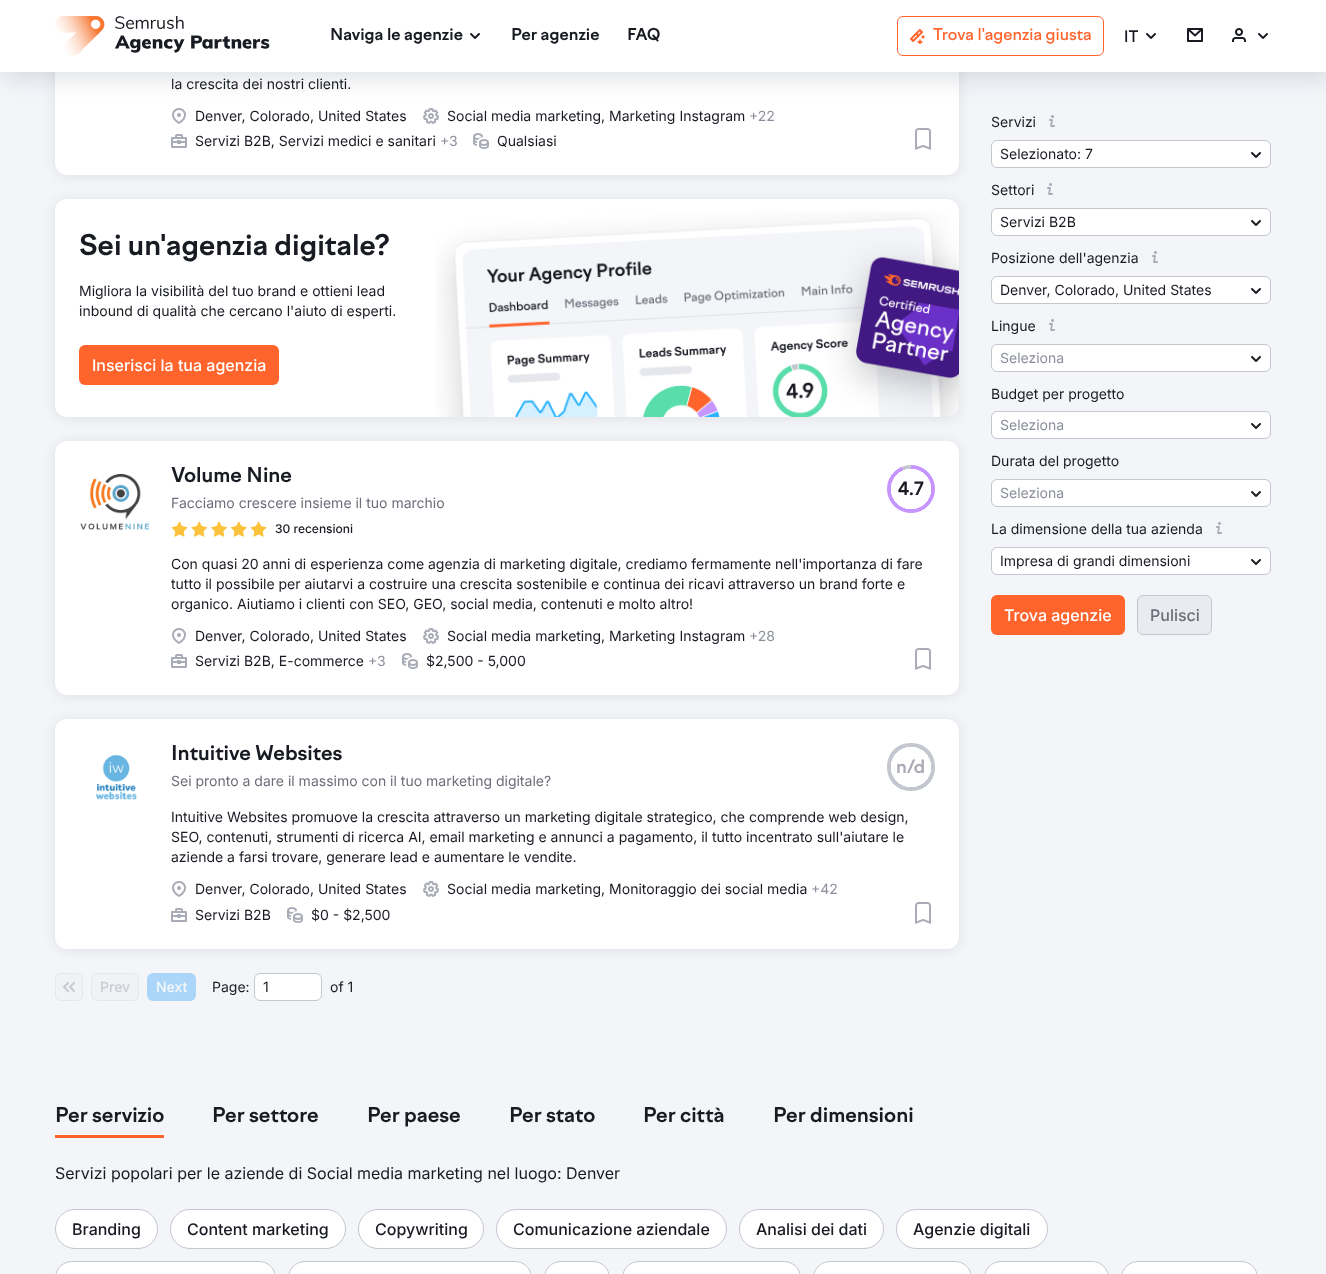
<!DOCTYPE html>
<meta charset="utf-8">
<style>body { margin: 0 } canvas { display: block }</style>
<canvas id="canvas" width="1326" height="1274"></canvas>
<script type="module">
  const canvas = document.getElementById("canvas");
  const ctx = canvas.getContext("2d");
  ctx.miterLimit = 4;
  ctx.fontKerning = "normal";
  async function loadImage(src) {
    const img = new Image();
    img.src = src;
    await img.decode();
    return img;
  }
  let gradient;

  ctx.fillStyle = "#f4f5f9";
  ctx.fillRect(0, 0, 1326, 1274);
  ctx.fillStyle = "rgba(25, 27, 35, 0.1)";
  ctx.filter = "blur(6px)";
  ctx.beginPath();
  ctx.roundRect(55, -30, 904, 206, 12);
  ctx.fill();
  ctx.filter = "none";
  ctx.fillStyle = "#ffffff";
  ctx.beginPath();
  ctx.roundRect(55, -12, 904, 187, 12);
  ctx.fill();
  ctx.drawImage(await loadImage("img6.png"), 172, 108, 14, 16);
  ctx.drawImage(await loadImage("img7.png"), 423, 108, 16, 16);
  ctx.drawImage(await loadImage("img16.png"), 1049, 115, 6, 12);
  ctx.fillStyle = "rgba(137, 141, 154, 0.3)";
  ctx.filter = "blur(12.5px)";
  ctx.beginPath();
  ctx.rect(5, 5, 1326, 72);
  ctx.fill();
  ctx.filter = "none";
  ctx.fillStyle = "#ffffff";
  ctx.fillRect(0, 0, 1326, 72);
  ctx.drawImage(await loadImage("img1.png"), 55, 16, 215, 40);
  ctx.font = "bold 16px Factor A";
  ctx.fillStyle = "#191b23";
  ctx.fillText("Naviga le agenzie", 330, 40);
  ctx.drawImage(await loadImage("img2.png"), 470, 33, 10, 6);
  ctx.fillText("Per agenzie", 511, 40);
  ctx.fillText("FAQ", 627, 40);
  ctx.beginPath();
  ctx.roundRect(897.5, 16.5, 206, 39, 5.5);
  ctx.strokeStyle = "#ff642d";
  ctx.stroke();
  ctx.drawImage(await loadImage("img3.png"), 910, 29, 15, 15);
  ctx.font = "500 16px Factor A";
  ctx.fillStyle = "#ff642d";
  ctx.fillText("Trova l'agenzia giusta", 933, 40);
  ctx.font = "500 16px Inter";
  ctx.fillStyle = "#191b23";
  ctx.fillText("IT", 1124, 42);
  ctx.drawImage(await loadImage("img2.png"), 1146, 33, 10, 6);
  ctx.drawImage(await loadImage("img4.png"), 1187, 28, 16, 14);
  ctx.drawImage(await loadImage("img5.png"), 1232, 28, 14, 14);
  ctx.drawImage(await loadImage("img2.png"), 1258, 33, 10, 6);
  ctx.font = "14px Inter";
  ctx.fillText("la crescita dei nostri clienti.", 171, 89);
  ctx.fillText("Denver, Colorado, United States", 195, 121);
  ctx.fillText("Social media marketing, Marketing Instagram", 447, 121);
  ctx.fillStyle = "#8a8e9b";
  ctx.fillText("+22", 749, 121);
  ctx.drawImage(await loadImage("img8.png"), 171, 134, 16, 14);
  ctx.fillStyle = "#191b23";
  ctx.fillText("Servizi B2B, Servizi medici e sanitari", 195, 146);
  ctx.fillStyle = "#8a8e9b";
  ctx.fillText("+3", 440, 146);
  ctx.drawImage(await loadImage("img9.png"), 473, 133, 16, 16);
  ctx.fillStyle = "#191b23";
  ctx.fillText("Qualsiasi", 497, 146);
  ctx.drawImage(await loadImage("img10.png"), 915, 128, 16, 22);
  ctx.fillStyle = "rgba(25, 27, 35, 0.1)";
  ctx.filter = "blur(6px)";
  ctx.beginPath();
  ctx.roundRect(55, 200, 904, 218, 12);
  ctx.fill();
  ctx.filter = "none";
  ctx.fillStyle = "#ffffff";
  ctx.beginPath();
  ctx.roundRect(55, 199, 904, 218, 12);
  ctx.fill();
  ctx.font = "bold 28px Factor A";
  ctx.fillStyle = "#191b23";
  ctx.fillText("Sei un'agenzia digitale?", 79, 255);
  ctx.font = "14px Inter";
  ctx.fillText("Migliora la visibilità del tuo brand e ottieni lead", 79, 296);
  ctx.fillText("inbound di qualità che cercano l'aiuto di esperti.", 79, 316);
  ctx.fillStyle = "#ff642d";
  ctx.beginPath();
  ctx.roundRect(79, 345, 200, 40, 6);
  ctx.fill();
  ctx.font = "500 16px Inter";
  ctx.fillStyle = "#ffffff";
  ctx.fillText("Inserisci la tua agenzia", 92, 371);
  ctx.drawImage(await loadImage("img11.png"), 436, 211, 523, 206);
  ctx.fillStyle = "rgba(25, 27, 35, 0.1)";
  ctx.filter = "blur(6px)";
  ctx.beginPath();
  ctx.roundRect(55, 442, 904, 254, 12);
  ctx.fill();
  ctx.filter = "none";
  ctx.fillStyle = "#ffffff";
  ctx.beginPath();
  ctx.roundRect(55, 441, 904, 254, 12);
  ctx.fill();
  ctx.drawImage(await loadImage("img12.png"), 80, 473, 70, 57);
  ctx.font = "bold 20px Factor A";
  ctx.fillStyle = "#191b23";
  ctx.fillText("Volume Nine", 171, 482);
  ctx.font = "14px Inter";
  ctx.fillStyle = "#6c6e79";
  ctx.fillText("Facciamo crescere insieme il tuo marchio", 171, 508);
  ctx.drawImage(await loadImage("img13.png"), 171, 521, 96, 16);
  ctx.font = "500 12px Inter";
  ctx.fillStyle = "#191b23";
  ctx.fillText("30 recensioni", 275, 533);
  ctx.drawImage(await loadImage("img14.png"), 887, 465, 48, 48);
  gradient = ctx.createRadialGradient(911, 489, 0, 911, 489, 24);
  gradient.addColorStop(0.84, "#ffffff");
  gradient.addColorStop(0.85, "rgba(255, 255, 255, 0)");
  gradient.addColorStop(1, "rgba(0, 0, 0, 0)");
  ctx.fillStyle = gradient;
  ctx.fillRect(891, 469, 40, 40);
  ctx.font = "bold 18px Factor A";
  ctx.fillStyle = "#191b23";
  ctx.fillText("4.7", 898, 495);
  ctx.font = "14px Inter";
  ctx.fillText("Con quasi 20 anni di esperienza come agenzia di marketing digitale, crediamo fermamente nell'importanza di fare", 171, 569);
  ctx.fillText("tutto il possibile per aiutarvi a costruire una crescita sostenibile e continua dei ricavi attraverso un brand forte e", 171, 589);
  ctx.fillText("organico. Aiutiamo i clienti con SEO, GEO, social media, contenuti e molto altro!", 171, 609);
  ctx.drawImage(await loadImage("img6.png"), 172, 628, 14, 16);
  ctx.fillText("Denver, Colorado, United States", 195, 641);
  ctx.drawImage(await loadImage("img7.png"), 423, 628, 16, 16);
  ctx.fillText("Social media marketing, Marketing Instagram", 447, 641);
  ctx.fillStyle = "#8a8e9b";
  ctx.fillText("+28", 749, 641);
  ctx.drawImage(await loadImage("img8.png"), 171, 654, 16, 14);
  ctx.fillStyle = "#191b23";
  ctx.fillText("Servizi B2B, E-commerce", 195, 666);
  ctx.fillStyle = "#8a8e9b";
  ctx.fillText("+3", 368, 666);
  ctx.drawImage(await loadImage("img9.png"), 402, 653, 16, 16);
  ctx.fillStyle = "#191b23";
  ctx.fillText("$2,500 - 5,000", 426, 666);
  ctx.drawImage(await loadImage("img10.png"), 915, 648, 16, 22);
  ctx.fillStyle = "rgba(25, 27, 35, 0.1)";
  ctx.filter = "blur(6px)";
  ctx.beginPath();
  ctx.roundRect(55, 720, 904, 230, 12);
  ctx.fill();
  ctx.filter = "none";
  ctx.fillStyle = "#ffffff";
  ctx.beginPath();
  ctx.roundRect(55, 719, 904, 230, 12);
  ctx.fill();
  ctx.drawImage(await loadImage("img15.png"), 95, 754, 42, 46);
  ctx.font = "bold 20px Factor A";
  ctx.fillStyle = "#191b23";
  ctx.fillText("Intuitive Websites", 171, 760);
  ctx.font = "14px Inter";
  ctx.fillStyle = "#6c6e79";
  ctx.fillText("Sei pronto a dare il massimo con il tuo marketing digitale?", 171, 786);
  ctx.fillStyle = "#c4c7cf";
  ctx.beginPath();
  ctx.moveTo(911, 767);
  ctx.lineTo(911, 743);
  ctx.bezierCurveTo(943, 743, 943, 791, 911, 791);
  ctx.bezierCurveTo(879, 791, 879, 743, 911, 743);
  ctx.closePath();
  ctx.fill();
  gradient = ctx.createRadialGradient(911, 767, 0, 911, 767, 24);
  gradient.addColorStop(0.84, "#ffffff");
  gradient.addColorStop(0.85, "rgba(255, 255, 255, 0)");
  gradient.addColorStop(1, "rgba(0, 0, 0, 0)");
  ctx.fillStyle = gradient;
  ctx.fillRect(891, 747, 40, 40);
  ctx.font = "bold 18px Factor A";
  ctx.fillStyle = "#a9abb6";
  ctx.fillText("n/d", 896, 773);
  ctx.font = "14px Inter";
  ctx.fillStyle = "#191b23";
  ctx.fillText("Intuitive Websites promuove la crescita attraverso un marketing digitale strategico, che comprende web design,", 171, 822);
  ctx.fillText("SEO, contenuti, strumenti di ricerca AI, email marketing e annunci a pagamento, il tutto incentrato sull'aiutare le", 171, 842);
  ctx.fillText("aziende a farsi trovare, generare lead e aumentare le vendite.", 171, 862);
  ctx.drawImage(await loadImage("img6.png"), 172, 881, 14, 16);
  ctx.fillText("Denver, Colorado, United States", 195, 894);
  ctx.drawImage(await loadImage("img7.png"), 423, 881, 16, 16);
  ctx.fillText("Social media marketing, Monitoraggio dei social media", 447, 894);
  ctx.fillStyle = "#8a8e9b";
  ctx.fillText("+42", 811, 894);
  ctx.drawImage(await loadImage("img8.png"), 171, 908, 16, 14);
  ctx.fillStyle = "#191b23";
  ctx.fillText("Servizi B2B", 195, 920);
  ctx.drawImage(await loadImage("img9.png"), 287, 907, 16, 16);
  ctx.fillText("$0 - $2,500", 311, 920);
  ctx.drawImage(await loadImage("img10.png"), 915, 902, 16, 22);
  ctx.fillText("Servizi", 991, 127);
  ctx.fillStyle = "#ffffff";
  ctx.beginPath();
  ctx.roundRect(991.5, 140.5, 279, 27, 5.5);
  ctx.fill();
  ctx.strokeStyle = "#c4c7cf";
  ctx.stroke();
  ctx.fillStyle = "#191b23";
  ctx.fillText("Selezionato: 7", 1000, 159);
  ctx.drawImage(await loadImage("img2.png"), 1251, 152, 10, 6);
  ctx.fillText("Settori", 991, 195);
  ctx.drawImage(await loadImage("img16.png"), 1047, 183, 6, 12);
  ctx.fillStyle = "#ffffff";
  ctx.beginPath();
  ctx.roundRect(991.5, 208.5, 279, 27, 5.5);
  ctx.fill();
  ctx.stroke();
  ctx.fillStyle = "#191b23";
  ctx.fillText("Servizi B2B", 1000, 227);
  ctx.drawImage(await loadImage("img2.png"), 1251, 220, 10, 6);
  ctx.fillText("Posizione dell'agenzia", 991, 263);
  ctx.drawImage(await loadImage("img16.png"), 1152, 251, 6, 12);
  ctx.fillStyle = "#ffffff";
  ctx.beginPath();
  ctx.roundRect(991.5, 276.5, 279, 27, 5.5);
  ctx.fill();
  ctx.stroke();
  ctx.fillStyle = "#191b23";
  ctx.fillText("Denver, Colorado, United States", 1000, 295);
  ctx.drawImage(await loadImage("img2.png"), 1251, 288, 10, 6);
  ctx.fillText("Lingue", 991, 331);
  ctx.drawImage(await loadImage("img16.png"), 1049, 319, 6, 12);
  ctx.fillStyle = "#ffffff";
  ctx.beginPath();
  ctx.roundRect(991.5, 344.5, 279, 27, 5.5);
  ctx.fill();
  ctx.stroke();
  ctx.fillStyle = "#8a8e9b";
  ctx.fillText("Seleziona", 1000, 363);
  ctx.drawImage(await loadImage("img2.png"), 1251, 356, 10, 6);
  ctx.fillStyle = "#191b23";
  ctx.fillText("Budget per progetto", 991, 399);
  ctx.fillStyle = "#ffffff";
  ctx.beginPath();
  ctx.roundRect(991.5, 411.5, 279, 27, 5.5);
  ctx.fill();
  ctx.stroke();
  ctx.fillStyle = "#8a8e9b";
  ctx.fillText("Seleziona", 1000, 430);
  ctx.drawImage(await loadImage("img2.png"), 1251, 423, 10, 6);
  ctx.fillStyle = "#191b23";
  ctx.fillText("Durata del progetto", 991, 466);
  ctx.fillStyle = "#ffffff";
  ctx.beginPath();
  ctx.roundRect(991.5, 479.5, 279, 27, 5.5);
  ctx.fill();
  ctx.stroke();
  ctx.fillStyle = "#8a8e9b";
  ctx.fillText("Seleziona", 1000, 498);
  ctx.drawImage(await loadImage("img2.png"), 1251, 491, 10, 6);
  ctx.fillStyle = "#191b23";
  ctx.fillText("La dimensione della tua azienda", 991, 534);
  ctx.drawImage(await loadImage("img16.png"), 1216, 522, 6, 12);
  ctx.fillStyle = "#ffffff";
  ctx.beginPath();
  ctx.roundRect(991.5, 547.5, 279, 27, 5.5);
  ctx.fill();
  ctx.stroke();
  ctx.fillStyle = "#191b23";
  ctx.fillText("Impresa di grandi dimensioni", 1000, 566);
  ctx.drawImage(await loadImage("img2.png"), 1251, 559, 10, 6);
  ctx.fillStyle = "#ff642d";
  ctx.beginPath();
  ctx.roundRect(991, 595, 134, 40, 6);
  ctx.fill();
  ctx.font = "500 16px Inter";
  ctx.fillStyle = "#ffffff";
  ctx.fillText("Trova agenzie", 1004, 621);
  ctx.fillStyle = "#e9ebf0";
  ctx.beginPath();
  ctx.roundRect(1137.5, 595.5, 74, 39, 5.5);
  ctx.fill();
  ctx.stroke();
  ctx.fillStyle = "#6c6e79";
  ctx.fillText("Pulisci", 1150, 621);
  ctx.fillStyle = "#f1f2f6";
  ctx.beginPath();
  ctx.roundRect(55.5, 973.5, 27, 27, 5.5);
  ctx.fill();
  ctx.strokeStyle = "#e6e7ec";
  ctx.stroke();
  ctx.drawImage(await loadImage("img17.png"), 63, 982, 12, 10);
  ctx.beginPath();
  ctx.roundRect(91.5, 973.5, 47, 27, 5.5);
  ctx.fill();
  ctx.stroke();
  ctx.font = "500 14px Inter";
  ctx.fillStyle = "#cbcdd3";
  ctx.fillText("Prev", 100, 992);
  ctx.fillStyle = "#abd6f9";
  ctx.beginPath();
  ctx.roundRect(147, 973, 49, 28, 6);
  ctx.fill();
  ctx.fillStyle = "#f7f8fb";
  ctx.fillText("Next", 156, 992);
  ctx.font = "14px Inter";
  ctx.fillStyle = "#191b23";
  ctx.fillText("Page:", 212, 992);
  ctx.fillStyle = "#ffffff";
  ctx.beginPath();
  ctx.roundRect(254.5, 973.5, 67, 27, 5.5);
  ctx.fill();
  ctx.strokeStyle = "#c4c7cf";
  ctx.stroke();
  ctx.fillStyle = "#191b23";
  ctx.fillText("1", 263, 992);
  ctx.fillText("of 1", 330, 992);
  ctx.font = "bold 20px Factor A";
  ctx.fillText("Per servizio", 55, 1122);
  ctx.fillStyle = "#ff642d";
  ctx.fillRect(55, 1135, 109, 3);
  ctx.fillStyle = "#191b23";
  ctx.fillText("Per settore", 212, 1122);
  ctx.fillText("Per paese", 367, 1122);
  ctx.fillText("Per stato", 509, 1122);
  ctx.fillText("Per città", 643, 1122);
  ctx.fillText("Per dimensioni", 773, 1122);
  ctx.font = "16px Inter";
  ctx.fillText("Servizi popolari per le aziende di Social media marketing nel luogo: Denver", 55, 1179);
  ctx.fillStyle = "#ffffff";
  ctx.beginPath();
  ctx.roundRect(55.5, 1209.5, 102, 39, 19.5);
  ctx.fill();
  ctx.stroke();
  ctx.font = "500 16px Inter";
  ctx.fillStyle = "#191b23";
  ctx.fillText("Branding", 72, 1235);
  ctx.fillStyle = "#ffffff";
  ctx.beginPath();
  ctx.roundRect(170.5, 1209.5, 175, 39, 19.5);
  ctx.fill();
  ctx.stroke();
  ctx.fillStyle = "#191b23";
  ctx.fillText("Content marketing", 187, 1235);
  ctx.fillStyle = "#ffffff";
  ctx.beginPath();
  ctx.roundRect(358.5, 1209.5, 125, 39, 19.5);
  ctx.fill();
  ctx.stroke();
  ctx.fillStyle = "#191b23";
  ctx.fillText("Copywriting", 375, 1235);
  ctx.fillStyle = "#ffffff";
  ctx.beginPath();
  ctx.roundRect(496.5, 1209.5, 230, 39, 19.5);
  ctx.fill();
  ctx.stroke();
  ctx.fillStyle = "#191b23";
  ctx.fillText("Comunicazione aziendale", 513, 1235);
  ctx.fillStyle = "#ffffff";
  ctx.beginPath();
  ctx.roundRect(739.5, 1209.5, 144, 39, 19.5);
  ctx.fill();
  ctx.stroke();
  ctx.fillStyle = "#191b23";
  ctx.fillText("Analisi dei dati", 756, 1235);
  ctx.fillStyle = "#ffffff";
  ctx.beginPath();
  ctx.roundRect(896.5, 1209.5, 151, 39, 19.5);
  ctx.fill();
  ctx.stroke();
  ctx.fillStyle = "#191b23";
  ctx.fillText("Agenzie digitali", 913, 1235);
  ctx.fillStyle = "#ffffff";
  ctx.beginPath();
  ctx.roundRect(55.5, 1261.5, 220, 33, 19.5);
  ctx.fill();
  ctx.stroke();
  ctx.beginPath();
  ctx.roundRect(288.5, 1261.5, 243, 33, 19.5);
  ctx.fill();
  ctx.stroke();
  ctx.beginPath();
  ctx.roundRect(544.5, 1261.5, 65, 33, 19.5);
  ctx.fill();
  ctx.stroke();
  ctx.beginPath();
  ctx.roundRect(622.5, 1261.5, 178, 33, 19.5);
  ctx.fill();
  ctx.stroke();
  ctx.beginPath();
  ctx.roundRect(813.5, 1261.5, 158, 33, 19.5);
  ctx.fill();
  ctx.stroke();
  ctx.beginPath();
  ctx.roundRect(984.5, 1261.5, 124, 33, 19.5);
  ctx.fill();
  ctx.stroke();
  ctx.beginPath();
  ctx.roundRect(1121.5, 1261.5, 136, 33, 19.5);
  ctx.fill();
  ctx.stroke();
</script>
